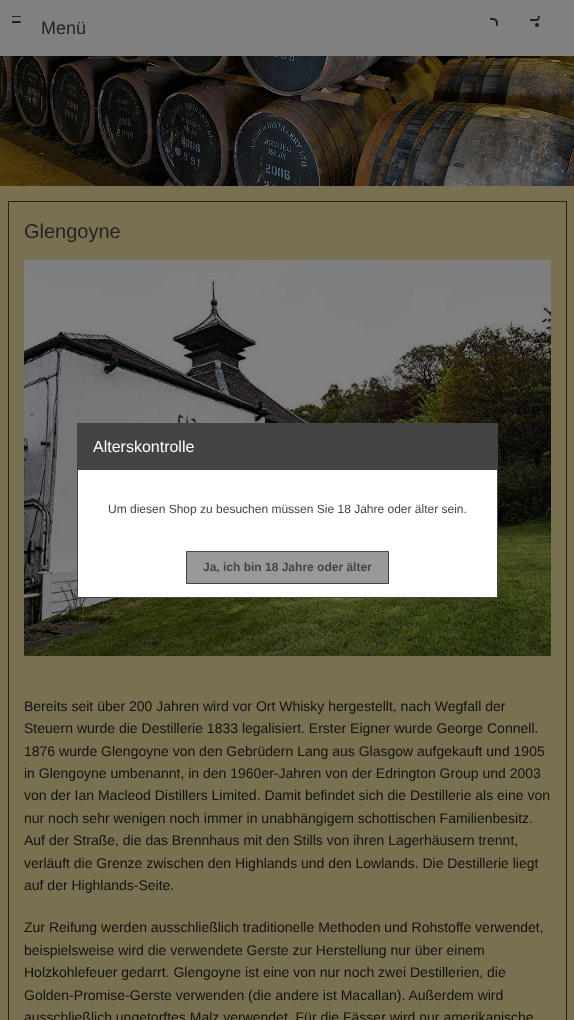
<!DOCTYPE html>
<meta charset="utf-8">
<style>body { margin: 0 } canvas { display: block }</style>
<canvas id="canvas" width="574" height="1020"></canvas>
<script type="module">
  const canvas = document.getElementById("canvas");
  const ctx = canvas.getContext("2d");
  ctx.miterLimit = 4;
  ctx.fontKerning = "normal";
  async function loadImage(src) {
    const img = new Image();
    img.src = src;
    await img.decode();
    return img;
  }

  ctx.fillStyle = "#808080";
  ctx.fillRect(0, 0, 574, 1020);
  ctx.drawImage(await loadImage("img1.png"), 12, 16, 9, 7);
  ctx.font = "18px Liberation Sans";
  ctx.fillStyle = "#222222";
  ctx.fillText("Menü", 41, 34);
  ctx.drawImage(await loadImage("img2.png"), 490, 18, 8, 8);
  ctx.drawImage(await loadImage("img3.png"), 530, 16, 10, 11);
  ctx.drawImage(await loadImage("img4.png"), 0, 56, 574, 130);
  ctx.fillStyle = "#787050";
  ctx.fillRect(0, 186, 574, 834);
  ctx.strokeStyle = "#222222";
  ctx.strokeRect(8.5, 201.5, 558, 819);
  ctx.font = "20px Liberation Sans";
  ctx.fillStyle = "#222222";
  ctx.fillText("Glengoyne", 24, 238);
  ctx.drawImage(await loadImage("img5.png"), 24, 260, 527, 396);
  ctx.font = "14px Liberation Sans";
  ctx.fillStyle = "#101111";
  ctx.fillText("Bereits seit über 200 Jahren wird vor Ort Whisky hergestellt, nach Wegfall der", 24, 711);
  ctx.fillText("Steuern wurde die Destillerie 1833 legalisiert. Erster Eigner wurde George Connell.", 24, 733);
  ctx.fillText("1876 wurde Glengoyne von den Gebrüdern Lang aus Glasgow aufgekauft und 1905", 24, 756);
  ctx.fillText("in Glengoyne umbenannt, in den 1960er-Jahren von der Edrington Group und 2003", 24, 778);
  ctx.fillText("von der Ian Macleod Distillers Limited. Damit befindet sich die Destillerie als eine von", 24, 800);
  ctx.fillText("nur noch sehr wenigen noch immer in unabhängigem schottischen Familienbesitz.", 24, 823);
  ctx.fillText("Auf der Straße, die das Brennhaus mit den Stills von ihren Lagerhäusern trennt,", 24, 845);
  ctx.fillText("verläuft die Grenze zwischen den Highlands und den Lowlands. Die Destillerie liegt", 24, 868);
  ctx.fillText("auf der Highlands-Seite.", 24, 890);
  ctx.fillText("Zur Reifung werden ausschließlich traditionelle Methoden und Rohstoffe verwendet,", 24, 932);
  ctx.fillText("beispielsweise wird die verwendete Gerste zur Herstellung nur über einem", 24, 955);
  ctx.fillText("Holzkohlefeuer gedarrt. Glengoyne ist eine von nur noch zwei Destillerien, die", 24, 977);
  ctx.fillText("Golden-Promise-Gerste verwenden (die andere ist Macallan). Außerdem wird", 24, 1000);
  ctx.fillText("ausschließlich ungetorftes Malz verwendet. Für die Fässer wird nur amerikanische", 24, 1022);
  ctx.fillStyle = "#ffffff";
  ctx.fillRect(78, 470, 419, 127);
  ctx.strokeStyle = "#444444";
  ctx.strokeRect(77.5, 423.5, 420, 174);
  ctx.fillStyle = "#444444";
  ctx.fillRect(78, 424, 419, 46);
  ctx.font = "16px Liberation Sans";
  ctx.fillStyle = "#ffffff";
  ctx.fillText("Alterskontrolle", 93, 452);
  ctx.font = "12px Liberation Sans";
  ctx.fillStyle = "#444444";
  ctx.fillText("Um diesen Shop zu besuchen müssen Sie 18 Jahre oder älter sein.", 108, 513);
  ctx.fillStyle = "#999999";
  ctx.beginPath();
  ctx.rect(186.5, 551.5, 202, 32);
  ctx.fill();
  ctx.stroke();
  ctx.font = "bold 12px Liberation Sans";
  ctx.fillStyle = "#444444";
  ctx.fillText("Ja, ich bin 18 Jahre oder älter", 203, 571);
</script>
